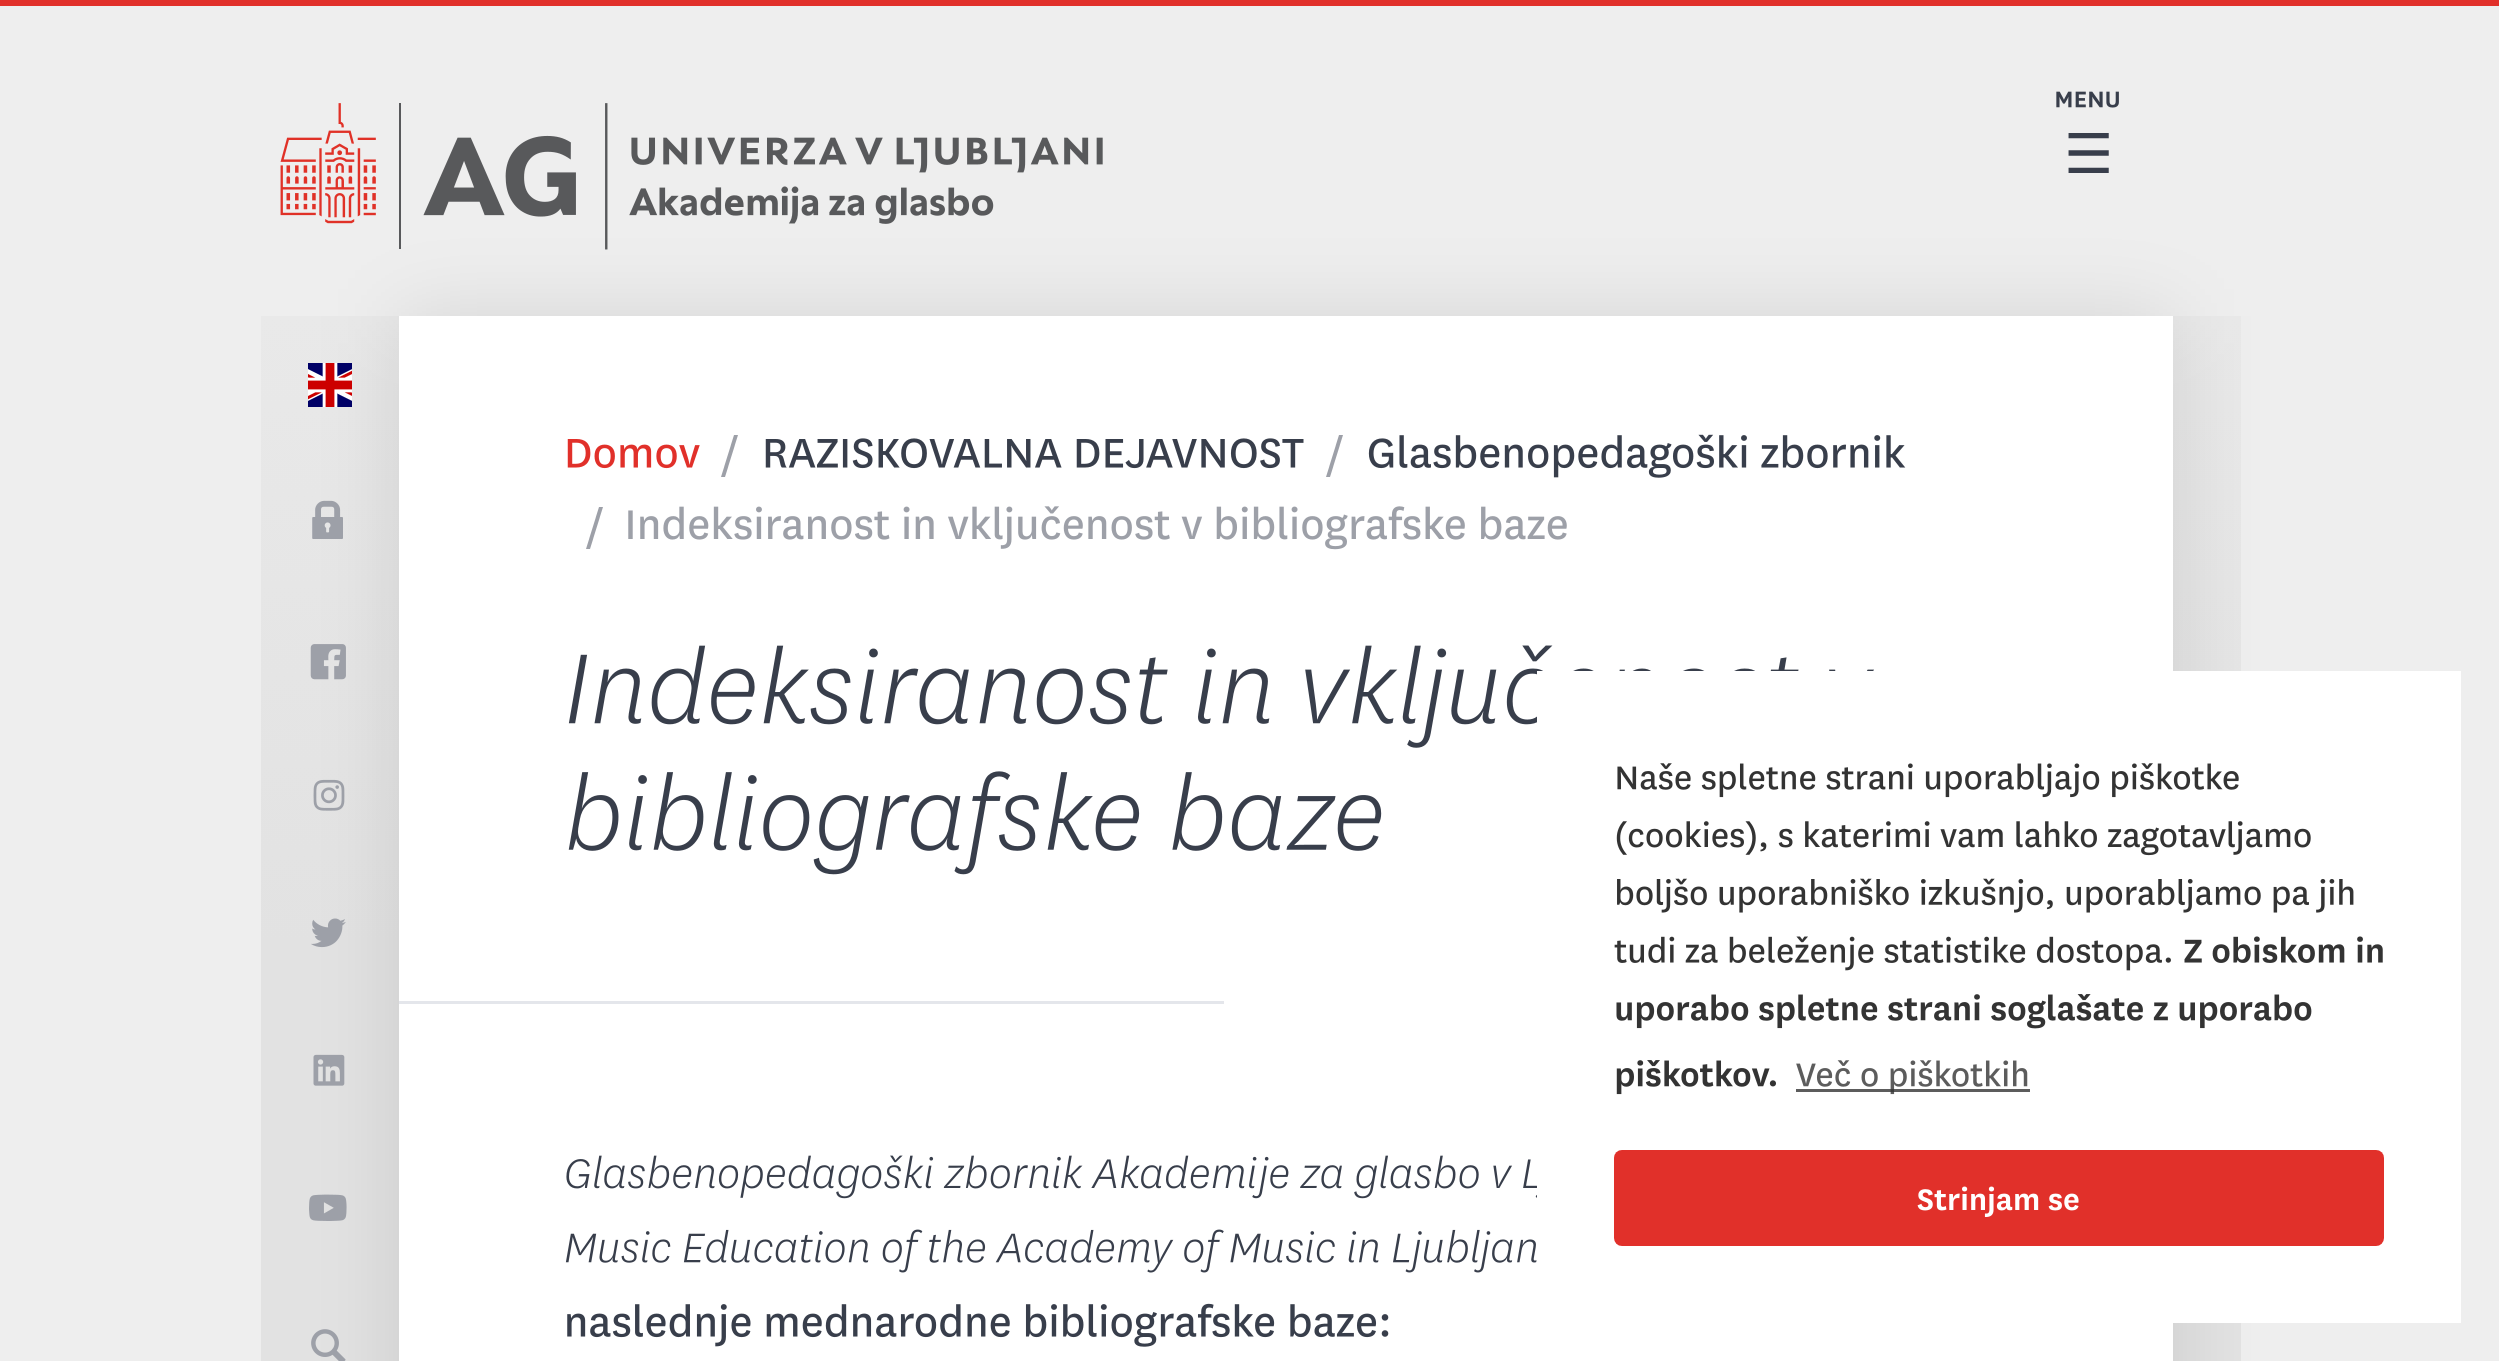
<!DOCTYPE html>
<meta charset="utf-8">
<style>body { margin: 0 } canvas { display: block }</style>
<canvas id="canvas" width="2499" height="1361"></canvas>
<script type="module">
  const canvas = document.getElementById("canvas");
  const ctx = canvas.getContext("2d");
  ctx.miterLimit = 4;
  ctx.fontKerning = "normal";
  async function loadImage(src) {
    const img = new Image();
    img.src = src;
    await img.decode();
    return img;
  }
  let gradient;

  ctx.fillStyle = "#eeeeee";
  ctx.fillRect(0, 0, 2499, 1361);
  ctx.fillStyle = "#e1302a";
  ctx.fillRect(0, 0, 2499, 6);
  gradient = ctx.createLinearGradient(1251, 316, 1251, 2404);
  gradient.addColorStop(0, "#e9e9e9");
  gradient.addColorStop(0.3, "#e2e2e2");
  ctx.fillStyle = gradient;
  ctx.fillRect(261, 316, 1980, 1045);
  ctx.fillStyle = "rgba(0, 0, 0, 0.1)";
  ctx.filter = "blur(41px)";
  ctx.beginPath();
  ctx.rect(399, 316, 1774, 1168);
  ctx.fill();
  ctx.filter = "none";
  ctx.drawImage(await loadImage("img1.png"), 280, 103, 823, 147);
  ctx.drawImage(await loadImage("img2.png"), 2056, 91, 63, 17);
  ctx.font = "55px DejaVu Sans";
  ctx.fillStyle = "#383e4b";
  ctx.fillText("☰", 2064, 173);
  ctx.drawImage(await loadImage("img3.png"), 308, 363, 44, 44);
  ctx.drawImage(await loadImage("img4.png"), 312, 500, 31, 39);
  ctx.drawImage(await loadImage("img5.png"), 310, 644, 36, 36);
  ctx.drawImage(await loadImage("img6.png"), 313, 779, 32, 32);
  ctx.drawImage(await loadImage("img7.png"), 311, 918, 35, 30);
  ctx.drawImage(await loadImage("img8.png"), 313, 1054, 32, 32);
  ctx.drawImage(await loadImage("img9.png"), 309, 1194, 38, 27);
  ctx.drawImage(await loadImage("img10.png"), 311, 1329, 35, 32);
  ctx.fillStyle = "#ffffff";
  ctx.fillRect(399, 316, 1774, 1045);
  ctx.drawImage(await loadImage("img11.png"), 567, 439, 133, 30);
  ctx.fillStyle = "#9da0a8";
  ctx.beginPath();
  ctx.moveTo(734, 435);
  ctx.lineTo(738, 435);
  ctx.lineTo(725, 477);
  ctx.lineTo(721, 477);
  ctx.closePath();
  ctx.fill();
  ctx.drawImage(await loadImage("img12.png"), 765, 438, 539, 31);
  ctx.beginPath();
  ctx.moveTo(1339, 435);
  ctx.lineTo(1343, 435);
  ctx.lineTo(1330, 477);
  ctx.lineTo(1326, 477);
  ctx.closePath();
  ctx.fill();
  ctx.drawImage(await loadImage("img13.png"), 1368, 434, 538, 44);
  ctx.beginPath();
  ctx.moveTo(599, 507);
  ctx.lineTo(603, 507);
  ctx.lineTo(590, 549);
  ctx.lineTo(586, 549);
  ctx.closePath();
  ctx.fill();
  ctx.drawImage(await loadImage("img14.png"), 628, 506, 939, 44);
  ctx.drawImage(await loadImage("img15.png"), 568, 645, 1306, 103);
  ctx.drawImage(await loadImage("img16.png"), 568, 771, 814, 104);
  ctx.fillStyle = "#e4e6eb";
  ctx.fillRect(399, 1001, 825, 3);
  ctx.drawImage(await loadImage("img17.png"), 566, 1155, 971, 44);
  ctx.drawImage(await loadImage("img18.png"), 565, 1229, 972, 44);
  ctx.drawImage(await loadImage("img19.png"), 567, 1303, 822, 44);
  ctx.fillStyle = "#ffffff";
  ctx.fillRect(1537, 671, 924, 652);
  ctx.drawImage(await loadImage("img20.png"), 1617, 763, 622, 35);
  ctx.drawImage(await loadImage("img21.png"), 1616, 821, 695, 35);
  ctx.drawImage(await loadImage("img22.png"), 1617, 878, 737, 35);
  ctx.drawImage(await loadImage("img23.png"), 1614, 936, 557, 35);
  ctx.drawImage(await loadImage("img24.png"), 2184, 936, 199, 27);
  ctx.drawImage(await loadImage("img25.png"), 1616, 994, 696, 35);
  ctx.drawImage(await loadImage("img26.png"), 1616, 1060, 160, 35);
  ctx.fillStyle = "#5c5c5c";
  ctx.fillRect(1796, 1089, 234, 3);
  ctx.drawImage(await loadImage("img27.png"), 1796, 1060, 232, 35);
  ctx.fillStyle = "#e1302a";
  ctx.beginPath();
  ctx.roundRect(1614, 1150, 770, 96, 8);
  ctx.fill();
  ctx.drawImage(await loadImage("img28.png"), 1917, 1186, 162, 31);
</script>
